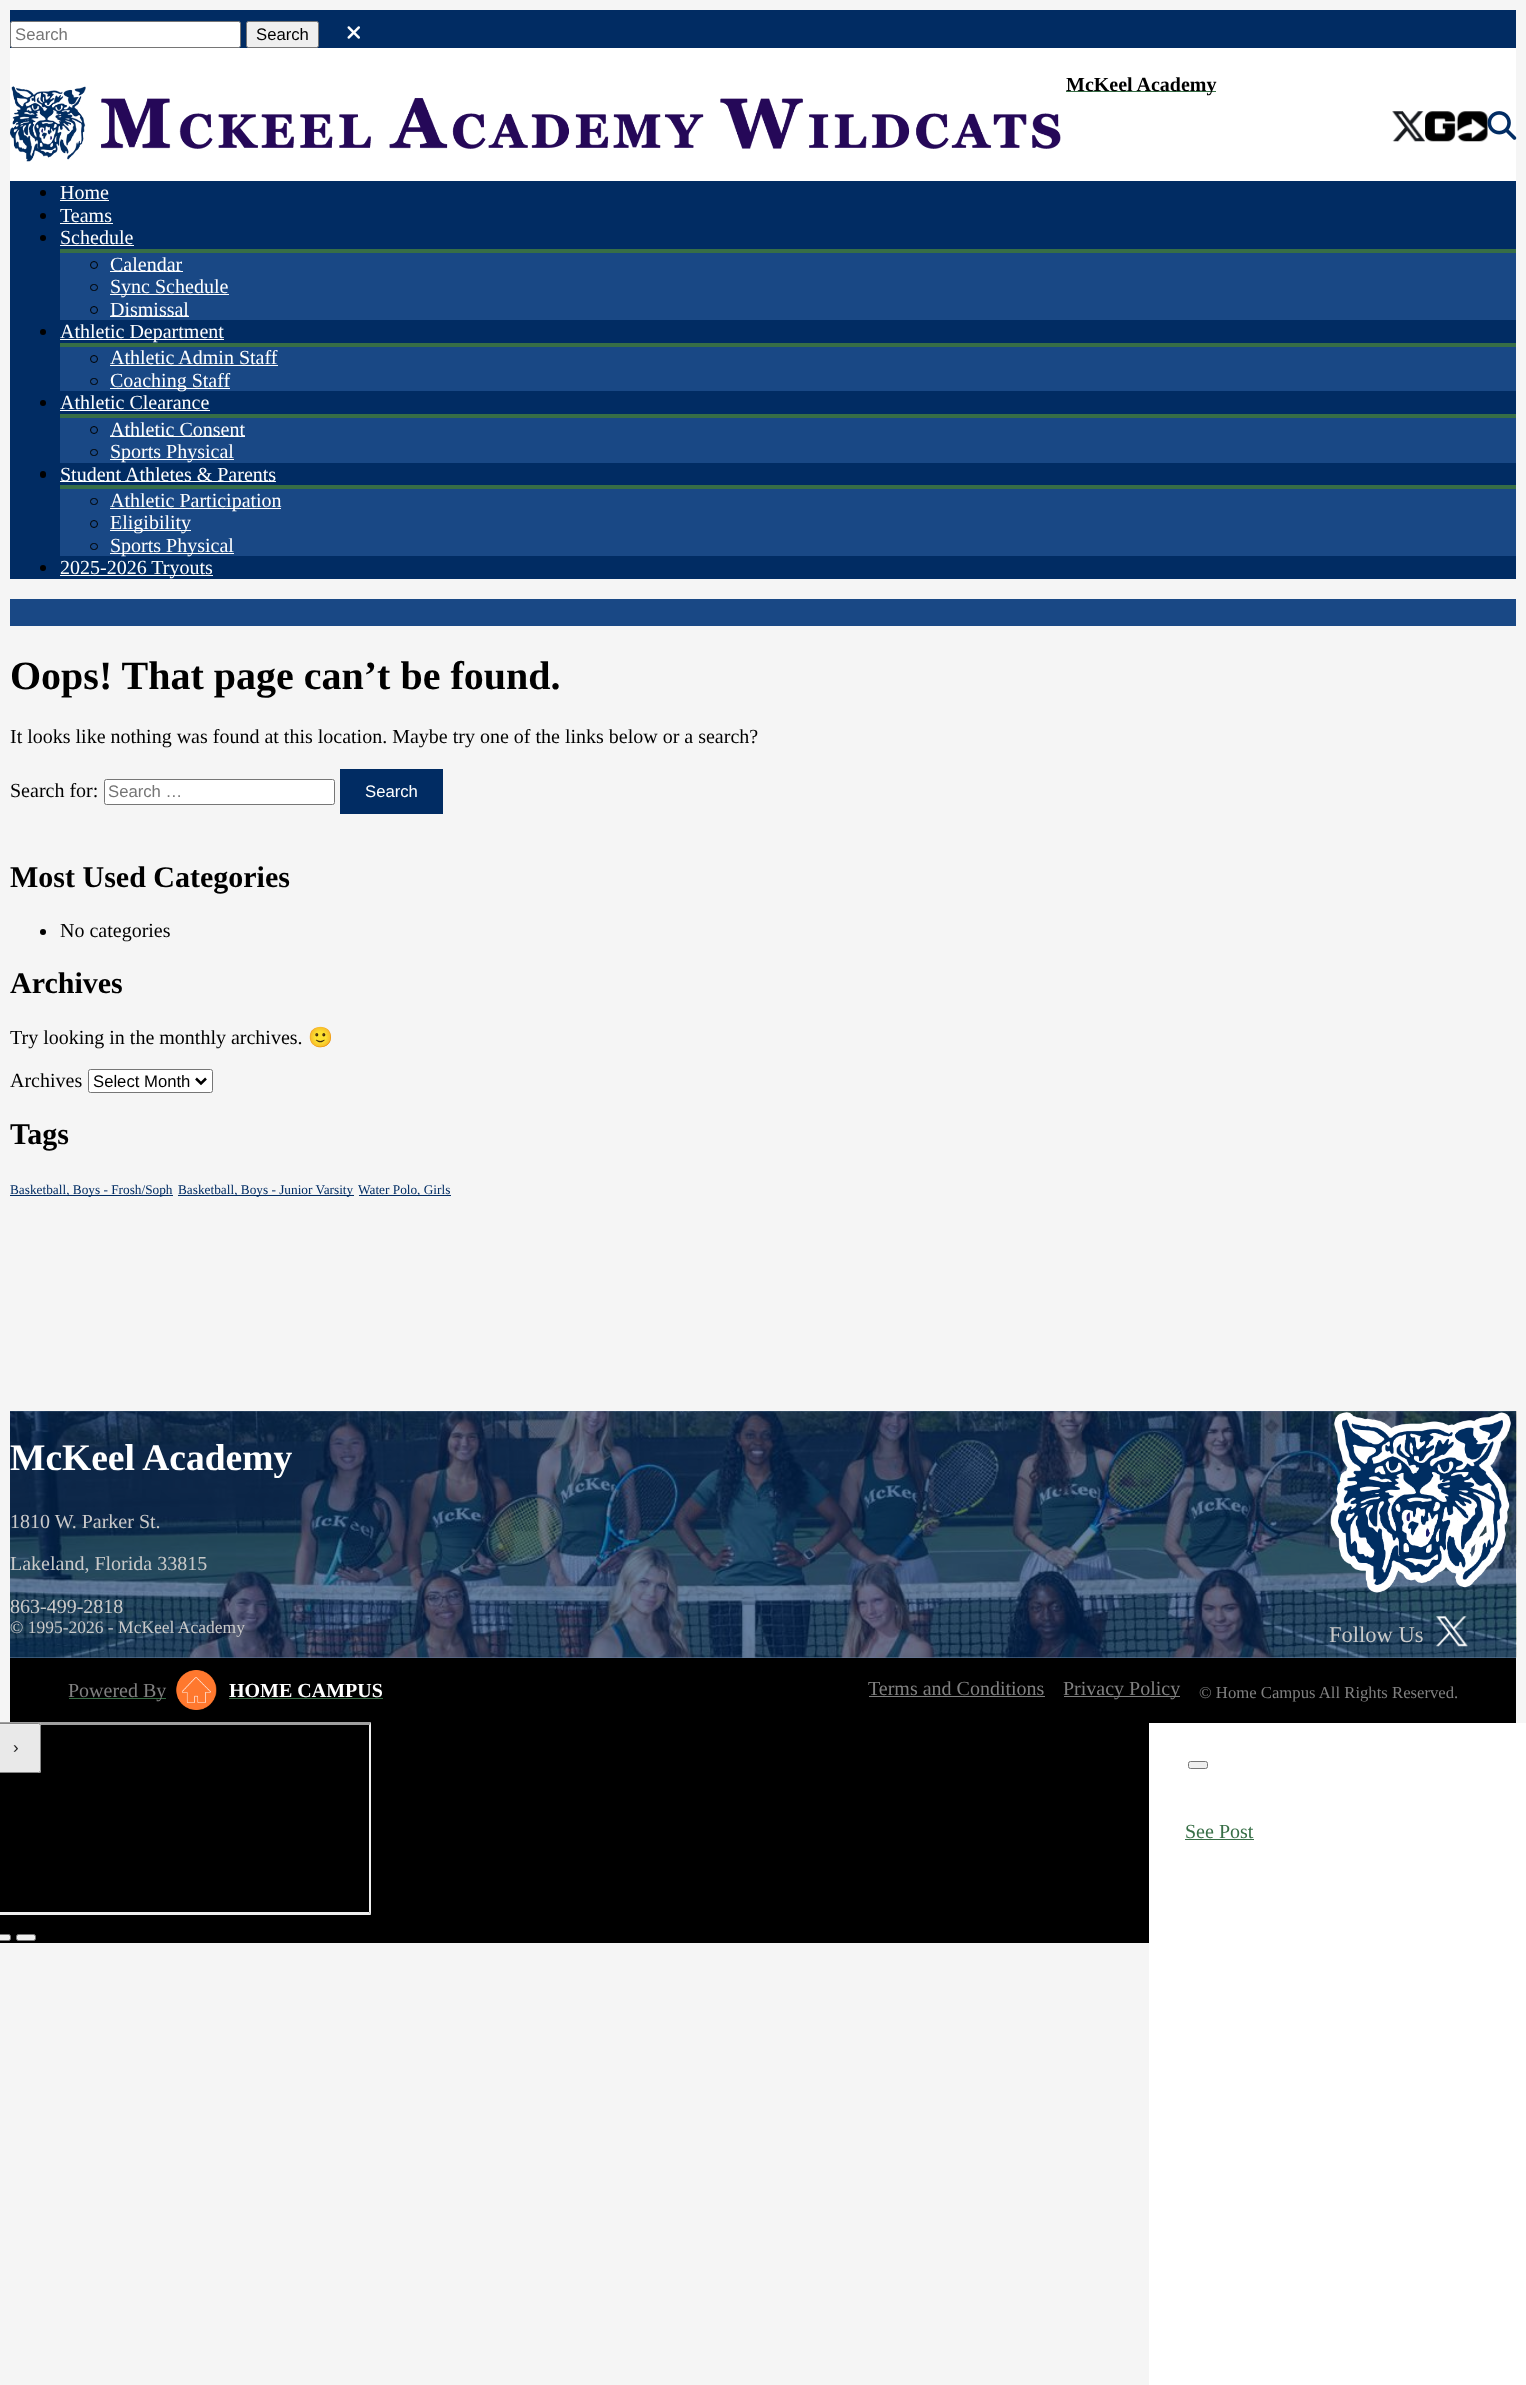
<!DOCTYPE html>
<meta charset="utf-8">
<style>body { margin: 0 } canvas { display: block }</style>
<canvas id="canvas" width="1526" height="2385"></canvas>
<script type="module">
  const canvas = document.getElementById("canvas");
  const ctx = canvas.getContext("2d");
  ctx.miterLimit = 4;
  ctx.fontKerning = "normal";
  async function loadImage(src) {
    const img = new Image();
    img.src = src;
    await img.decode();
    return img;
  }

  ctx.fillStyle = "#f5f5f5";
  ctx.fillRect(0, 0, 1526, 2385);
  ctx.fillStyle = "#ffffff";
  ctx.fillRect(10, 48, 1506, 133);
  ctx.fillStyle = "#012c63";
  ctx.fillRect(10, 10, 1506, 38);
  ctx.fillStyle = "#ffffff";
  ctx.beginPath();
  ctx.roundRect(10.5, 21.5, 230, 26, 2);
  ctx.fill();
  ctx.strokeStyle = "#767676";
  ctx.stroke();
  ctx.font = "16.7px Liberation Sans";
  ctx.fillStyle = "#757575";
  ctx.fillText("Search", 15, 40);
  ctx.fillStyle = "#efefef";
  ctx.beginPath();
  ctx.roundRect(246.5, 21.5, 72, 26, 2);
  ctx.fill();
  ctx.stroke();
  ctx.fillStyle = "#000000";
  ctx.fillText("Search", 256, 40);
  ctx.drawImage(await loadImage("img1.png"), 347, 26, 13, 13);
  ctx.drawImage(await loadImage("img2.png"), 10, 86, 1051, 76);
  ctx.fillStyle = "#376e46";
  ctx.fillRect(1066, 91, 150, 1);
  ctx.font = "bold 20px Liberation Serif";
  ctx.fillStyle = "#000000";
  ctx.fillText("McKeel Academy", 1066, 91);
  ctx.drawImage(await loadImage("img3.png"), 1392, 111, 33, 31);
  ctx.drawImage(await loadImage("img4.png"), 1425, 111, 63, 31);
  ctx.drawImage(await loadImage("img5.png"), 1487, 111, 30, 29);
  ctx.fillStyle = "#012c63";
  ctx.fillRect(10, 181, 1506, 398);
  ctx.fillStyle = "#000000";
  ctx.beginPath();
  ctx.arc(43, 193, 3, 0, Math.PI * 2);
  ctx.fill();
  ctx.font = "20px Liberation Serif";
  ctx.fillStyle = "#ffffff";
  ctx.fillText("Home", 60, 199);
  ctx.fillRect(60, 200, 49, 1);
  ctx.fillStyle = "#000000";
  ctx.beginPath();
  ctx.arc(43, 216, 3, 0, Math.PI * 2);
  ctx.fill();
  ctx.fillStyle = "#ffffff";
  ctx.fillText("Teams", 60, 222);
  ctx.fillRect(60, 223, 53, 1);
  ctx.fillStyle = "#000000";
  ctx.beginPath();
  ctx.arc(43, 238, 3, 0, Math.PI * 2);
  ctx.fill();
  ctx.fillStyle = "#ffffff";
  ctx.fillText("Schedule", 60, 244);
  ctx.fillRect(60, 245, 74, 1);
  ctx.fillStyle = "#194885";
  ctx.fillRect(60, 253, 1456, 67);
  ctx.fillStyle = "#376e46";
  ctx.fillRect(60, 249, 1456, 4);
  ctx.beginPath();
  ctx.arc(94, 265, 3.5, 0, Math.PI * 2);
  ctx.strokeStyle = "#000000";
  ctx.stroke();
  ctx.fillStyle = "#ffffff";
  ctx.fillRect(110, 271, 73, 1);
  ctx.fillText("Calendar", 110, 271);
  ctx.beginPath();
  ctx.roundRect(90.5, 284.5, 7, 6, 3);
  ctx.stroke();
  ctx.fillRect(110, 294, 119, 1);
  ctx.fillText("Sync Schedule", 110, 293);
  ctx.beginPath();
  ctx.arc(94, 310, 3.5, 0, Math.PI * 2);
  ctx.stroke();
  ctx.fillRect(110, 316, 79, 1);
  ctx.fillText("Dismissal", 110, 316);
  ctx.fillStyle = "#000000";
  ctx.beginPath();
  ctx.arc(43, 332, 3, 0, Math.PI * 2);
  ctx.fill();
  ctx.fillStyle = "#ffffff";
  ctx.fillRect(60, 339, 164, 1);
  ctx.fillText("Athletic Department", 60, 338);
  ctx.fillStyle = "#194885";
  ctx.fillRect(60, 347, 1456, 44);
  ctx.fillStyle = "#376e46";
  ctx.fillRect(60, 343, 1456, 4);
  ctx.beginPath();
  ctx.arc(94, 359, 3.5, 0, Math.PI * 2);
  ctx.stroke();
  ctx.fillStyle = "#ffffff";
  ctx.fillText("Athletic Admin Staff", 110, 364);
  ctx.fillRect(110, 365, 168, 1);
  ctx.beginPath();
  ctx.roundRect(90.5, 378.5, 7, 6, 3);
  ctx.stroke();
  ctx.fillRect(110, 388, 120, 1);
  ctx.fillText("Coaching Staff", 110, 387);
  ctx.fillStyle = "#000000";
  ctx.beginPath();
  ctx.arc(43, 403, 3, 0, Math.PI * 2);
  ctx.fill();
  ctx.fillStyle = "#ffffff";
  ctx.fillText("Athletic Clearance", 60, 409);
  ctx.fillRect(60, 410, 150, 1);
  ctx.fillStyle = "#194885";
  ctx.fillRect(60, 418, 1456, 45);
  ctx.fillStyle = "#376e46";
  ctx.fillRect(60, 414, 1456, 4);
  ctx.beginPath();
  ctx.arc(94, 430, 3.5, 0, Math.PI * 2);
  ctx.stroke();
  ctx.fillStyle = "#ffffff";
  ctx.fillRect(110, 436, 135, 1);
  ctx.fillText("Athletic Consent", 110, 436);
  ctx.beginPath();
  ctx.roundRect(90.5, 449.5, 7, 6, 3);
  ctx.stroke();
  ctx.fillRect(110, 459, 124, 1);
  ctx.fillText("Sports Physical", 110, 458);
  ctx.fillStyle = "#000000";
  ctx.beginPath();
  ctx.roundRect(40, 471, 6, 7, 3);
  ctx.fill();
  ctx.fillStyle = "#ffffff";
  ctx.fillRect(60, 481, 216, 1);
  ctx.fillText("Student Athletes & Parents", 60, 481);
  ctx.fillStyle = "#194885";
  ctx.fillRect(60, 489, 1456, 67);
  ctx.fillStyle = "#376e46";
  ctx.fillRect(60, 485, 1456, 4);
  ctx.beginPath();
  ctx.roundRect(90.5, 498.5, 7, 6, 3);
  ctx.stroke();
  ctx.fillStyle = "#ffffff";
  ctx.fillRect(110, 508, 171, 1);
  ctx.fillText("Athletic Participation", 110, 507);
  ctx.beginPath();
  ctx.arc(94, 524, 3.5, 0, Math.PI * 2);
  ctx.stroke();
  ctx.fillRect(110, 530, 81, 1);
  ctx.fillText("Eligibility", 110, 529);
  ctx.beginPath();
  ctx.roundRect(90.5, 543.5, 7, 6, 3);
  ctx.stroke();
  ctx.fillRect(110, 553, 124, 1);
  ctx.fillText("Sports Physical", 110, 552);
  ctx.fillStyle = "#000000";
  ctx.beginPath();
  ctx.arc(43, 568, 3, 0, Math.PI * 2);
  ctx.fill();
  ctx.fillStyle = "#ffffff";
  ctx.fillRect(60, 575, 153, 1);
  ctx.fillText("2025-2026 Tryouts", 60, 574);
  ctx.fillStyle = "#194885";
  ctx.fillRect(10, 599, 1506, 27);
  ctx.font = "bold 40px Liberation Serif";
  ctx.fillStyle = "#000000";
  ctx.fillText("Oops! That page can’t be found.", 10, 689);
  ctx.font = "20px Liberation Serif";
  ctx.fillText("It looks like nothing was found at this location. Maybe try one of the links below or a search?", 10, 743);
  ctx.fillText("Search for:", 10, 797);
  ctx.fillStyle = "#ffffff";
  ctx.beginPath();
  ctx.roundRect(104.5, 779.5, 230, 25, 2);
  ctx.fill();
  ctx.strokeStyle = "#767676";
  ctx.stroke();
  ctx.font = "16.7px Liberation Sans";
  ctx.fillStyle = "#757575";
  ctx.fillText("Search …", 108, 797);
  ctx.fillStyle = "#012c63";
  ctx.fillRect(340, 769, 103, 45);
  ctx.fillStyle = "#ffffff";
  ctx.fillText("Search", 365, 797);
  ctx.font = "bold 30px Liberation Serif";
  ctx.fillStyle = "#000000";
  ctx.fillText("Most Used Categories", 10, 887);
  ctx.beginPath();
  ctx.arc(43, 932, 3, 0, Math.PI * 2);
  ctx.fill();
  ctx.font = "20px Liberation Serif";
  ctx.fillText("No categories", 60, 937);
  ctx.font = "bold 30px Liberation Serif";
  ctx.fillText("Archives", 10, 993);
  ctx.font = "20px Liberation Serif";
  ctx.fillText("Try looking in the monthly archives.", 10, 1044);
  ctx.font = "20px Noto Color Emoji";
  ctx.fillText("🙂", 308, 1044);
  ctx.font = "20px Liberation Serif";
  ctx.fillText("Archives", 10, 1087);
  ctx.fillStyle = "#ffffff";
  ctx.beginPath();
  ctx.roundRect(88.5, 1069.5, 124, 23, 2);
  ctx.fill();
  ctx.stroke();
  ctx.beginPath();
  ctx.moveTo(196, 1078.5);
  ctx.lineTo(201, 1083.5);
  ctx.lineTo(206, 1078.5);
  ctx.strokeStyle = "#000000";
  ctx.lineWidth = 2.5;
  ctx.stroke();
  ctx.font = "16.7px Liberation Sans";
  ctx.fillStyle = "#000000";
  ctx.fillText("Select Month", 93, 1087);
  ctx.font = "bold 30px Liberation Serif";
  ctx.fillText("Tags", 10, 1144);
  ctx.fillStyle = "#012c63";
  ctx.fillRect(10, 1195, 163, 1);
  ctx.font = "13.3px Liberation Serif";
  ctx.fillText("Basketball, Boys - Frosh/Soph", 10, 1194);
  ctx.fillRect(178, 1195, 176, 1);
  ctx.fillText("Basketball, Boys - Junior Varsity", 178, 1194);
  ctx.fillRect(359, 1195, 92, 1);
  ctx.fillText("Water Polo, Girls", 358, 1194);
  ctx.fillStyle = "#6780a1";
  ctx.fillRect(10, 1411, 1506, 247);
  ctx.drawImage(await loadImage("img6.png"), 10, 1411, 1507, 247);
  ctx.font = "bold 37.5px Liberation Serif";
  ctx.fillStyle = "#ffffff";
  ctx.fillText("McKeel Academy", 10, 1470);
  ctx.font = "20px Liberation Serif";
  ctx.fillStyle = "#c9c9c9";
  ctx.fillText("1810 W. Parker St.", 10, 1528);
  ctx.fillText("Lakeland, Florida 33815", 10, 1570);
  ctx.fillText("863-499-2818", 10, 1613);
  ctx.font = "17.5px Liberation Serif";
  ctx.fillText("© 1995-2026 - McKeel Academy", 10, 1633);
  ctx.drawImage(await loadImage("img7.png"), 1330, 1412, 181, 181);
  ctx.font = "22.5px Liberation Serif";
  ctx.fillText("Follow Us", 1329, 1642);
  ctx.drawImage(await loadImage("img8.png"), 1436, 1616, 32, 31);
  ctx.fillStyle = "#000000";
  ctx.fillRect(10, 1658, 1506, 65);
  ctx.fillStyle = "#376e46";
  ctx.fillRect(69, 1698, 97, 1);
  ctx.font = "20px Liberation Serif";
  ctx.fillStyle = "#808080";
  ctx.fillText("Powered By", 68, 1697);
  ctx.drawImage(await loadImage("img9.png"), 176, 1670, 41, 40);
  ctx.font = "bold 20px Liberation Serif";
  ctx.fillStyle = "#ffffff";
  ctx.fillText("HOME CAMPUS", 229, 1697);
  ctx.fillStyle = "#376e46";
  ctx.fillRect(229, 1698, 154, 1);
  ctx.font = "20px Liberation Serif";
  ctx.fillStyle = "#808080";
  ctx.fillText("Terms and Conditions", 868, 1695);
  ctx.fillRect(869, 1696, 176, 1);
  ctx.fillRect(1064, 1696, 116, 1);
  ctx.fillText("Privacy Policy", 1063, 1695);
  ctx.font = "16.7px Liberation Serif";
  ctx.fillText("© Home Campus All Rights Reserved.", 1199, 1698);
  ctx.fillStyle = "#000000";
  ctx.fillRect(0, 1723, 1149, 220);
  ctx.fillStyle = "#9f9f9f";
  ctx.beginPath();
  ctx.moveTo(-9, 1722);
  ctx.lineTo(371, 1722);
  ctx.lineTo(369, 1725);
  ctx.lineTo(-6, 1725);
  ctx.closePath();
  ctx.fill();
  ctx.fillStyle = "#eeeeee";
  ctx.beginPath();
  ctx.moveTo(371, 1722);
  ctx.lineTo(371, 1915);
  ctx.lineTo(369, 1912);
  ctx.lineTo(369, 1725);
  ctx.closePath();
  ctx.fill();
  ctx.beginPath();
  ctx.moveTo(371, 1915);
  ctx.lineTo(-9, 1915);
  ctx.lineTo(-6, 1912);
  ctx.lineTo(369, 1912);
  ctx.closePath();
  ctx.fill();
  ctx.fillStyle = "#efefef";
  ctx.beginPath();
  ctx.roundRect(-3.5, 1934.5, 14, 6, 2);
  ctx.fill();
  ctx.strokeStyle = "#767676";
  ctx.lineWidth = 1;
  ctx.stroke();
  ctx.beginPath();
  ctx.roundRect(16.5, 1934.5, 19, 6, 2);
  ctx.fill();
  ctx.stroke();
  ctx.fillStyle = "rgba(239, 239, 239, 0.85)";
  ctx.beginPath();
  ctx.roundRect(-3, 1723, 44, 50, 2.5);
  ctx.fill();
  ctx.beginPath();
  ctx.roundRect(-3.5, 1723.5, 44, 49, 2);
  ctx.strokeStyle = "rgba(118, 118, 118, 0.85)";
  ctx.stroke();
  ctx.beginPath();
  ctx.roundRect(-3, 1723, 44, 50, 2.5);
  ctx.fill();
  ctx.beginPath();
  ctx.roundRect(-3.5, 1723.5, 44, 49, 2);
  ctx.stroke();
  ctx.font = "16.7px Liberation Sans";
  ctx.fillStyle = "#222222";
  ctx.fillText("›", 13, 1753);
  ctx.fillStyle = "#ffffff";
  ctx.fillRect(1149, 1723, 377, 662);
  ctx.fillStyle = "#efefef";
  ctx.beginPath();
  ctx.roundRect(1188.5, 1761.5, 19, 7, 2);
  ctx.fill();
  ctx.strokeStyle = "#767676";
  ctx.stroke();
  ctx.font = "20px Liberation Serif";
  ctx.fillStyle = "#376e46";
  ctx.fillText("See Post", 1185, 1838);
  ctx.fillRect(1185, 1839, 69, 1);
</script>
